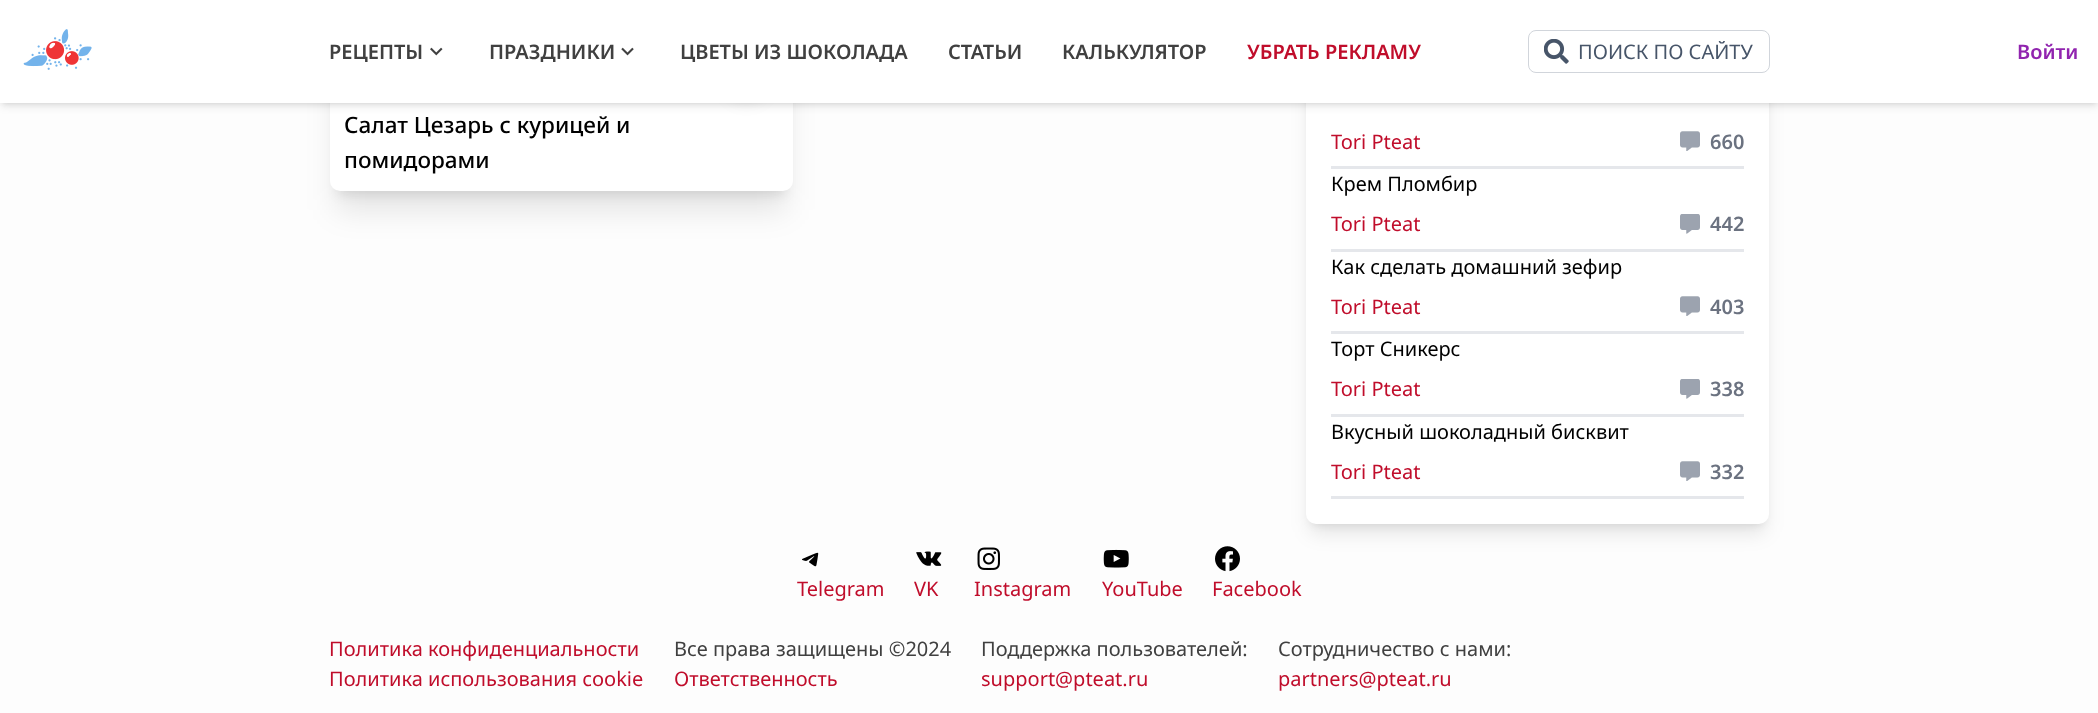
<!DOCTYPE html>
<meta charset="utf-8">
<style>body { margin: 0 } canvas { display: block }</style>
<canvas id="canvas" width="2098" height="713"></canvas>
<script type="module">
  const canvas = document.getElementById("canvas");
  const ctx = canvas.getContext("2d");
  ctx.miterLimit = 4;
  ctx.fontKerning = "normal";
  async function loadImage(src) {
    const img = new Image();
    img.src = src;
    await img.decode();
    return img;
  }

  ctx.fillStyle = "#fdfdfd";
  ctx.fillRect(0, 0, 2098, 713);
  ctx.fillStyle = "rgba(0, 0, 0, 0.1)";
  ctx.filter = "blur(6px)";
  ctx.beginPath();
  ctx.roundRect(338, -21, 447, 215, 2.5);
  ctx.fill();
  ctx.filter = "none";
  ctx.filter = "blur(15.5px)";
  ctx.beginPath();
  ctx.roundRect(336, -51, 450, 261, 4);
  ctx.fill();
  ctx.filter = "none";
  ctx.fillStyle = "#ffffff";
  ctx.beginPath();
  ctx.roundRect(330, -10, 463, 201, 10);
  ctx.fill();
  ctx.fillStyle = "rgba(0, 0, 0, 0.1)";
  ctx.filter = "blur(4px)";
  ctx.beginPath();
  ctx.roundRect(1311, -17, 453, 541, 5);
  ctx.fill();
  ctx.filter = "none";
  ctx.filter = "blur(9.5px)";
  ctx.beginPath();
  ctx.roundRect(1310, -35, 455, 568, 6);
  ctx.fill();
  ctx.filter = "none";
  ctx.fillStyle = "#ffffff";
  ctx.beginPath();
  ctx.roundRect(1306, -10, 463, 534, 10);
  ctx.fill();
  ctx.fillStyle = "rgba(0, 0, 0, 0.1)";
  ctx.filter = "blur(2.5px)";
  ctx.beginPath();
  ctx.rect(3, 5, 2093, 98);
  ctx.fill();
  ctx.filter = "none";
  ctx.filter = "blur(4px)";
  ctx.beginPath();
  ctx.rect(1, 6, 2097, 100);
  ctx.fill();
  ctx.filter = "none";
  ctx.filter = "blur(9.5px)";
  ctx.beginPath();
  ctx.roundRect(729, 64, 35, 35, 17.5);
  ctx.fill();
  ctx.filter = "none";
  ctx.fillStyle = "#ffffff";
  ctx.fillRect(0, 0, 2098, 103);
  ctx.drawImage(await loadImage("img1.png"), 23, 29, 69, 41);
  ctx.font = "600 20px Noto Sans";
  ctx.fillStyle = "#404040";
  ctx.fillText("РЕЦЕПТЫ", 329, 59);
  ctx.drawImage(await loadImage("img2.png"), 430, 47, 13, 9);
  ctx.fillText("ПРАЗДНИКИ", 489, 59);
  ctx.drawImage(await loadImage("img3.png"), 621, 47, 13, 9);
  ctx.fillText("ЦВЕТЫ ИЗ ШОКОЛАДА", 680, 59);
  ctx.fillText("СТАТЬИ", 948, 59);
  ctx.fillText("КАЛЬКУЛЯТОР", 1062, 59);
  ctx.fillStyle = "#c00d2b";
  ctx.fillText("УБРАТЬ РЕКЛАМУ", 1247, 59);
  ctx.beginPath();
  ctx.roundRect(1528.5, 30.5, 241, 42, 7.5);
  ctx.strokeStyle = "#d1d5db";
  ctx.stroke();
  ctx.drawImage(await loadImage("img4.png"), 1544, 39, 25, 25);
  ctx.font = "20px Noto Sans";
  ctx.fillStyle = "#475569";
  ctx.fillText("ПОИСК ПО САЙТУ", 1578, 59);
  ctx.font = "600 20px Noto Sans";
  ctx.fillStyle = "#9124af";
  ctx.fillText("Войти", 2017, 59);
  ctx.font = "500 22.5px Noto Sans";
  ctx.fillStyle = "#000000";
  ctx.fillText("Салат Цезарь с курицей и", 344, 133);
  ctx.fillText("помидорами", 344, 168);
  ctx.font = "20px Noto Sans";
  ctx.fillStyle = "#c00d2b";
  ctx.fillText("Tori Pteat", 1331, 149);
  ctx.drawImage(await loadImage("img5.png"), 1680, 131, 20, 20);
  ctx.font = "600 20px Noto Sans";
  ctx.fillStyle = "#6b7280";
  ctx.fillText("660", 1710, 149);
  ctx.fillStyle = "#e5e7eb";
  ctx.fillRect(1331, 166, 413, 3);
  ctx.font = "20px Noto Sans";
  ctx.fillStyle = "#000000";
  ctx.fillText("Крем Пломбир", 1331, 191);
  ctx.fillStyle = "#c00d2b";
  ctx.fillText("Tori Pteat", 1331, 231);
  ctx.drawImage(await loadImage("img6.png"), 1680, 214, 20, 20);
  ctx.font = "600 20px Noto Sans";
  ctx.fillStyle = "#6b7280";
  ctx.fillText("442", 1710, 231);
  ctx.fillStyle = "#e5e7eb";
  ctx.fillRect(1331, 249, 413, 3);
  ctx.font = "20px Noto Sans";
  ctx.fillStyle = "#000000";
  ctx.fillText("Как сделать домашний зефир", 1331, 274);
  ctx.fillStyle = "#c00d2b";
  ctx.fillText("Tori Pteat", 1331, 314);
  ctx.drawImage(await loadImage("img5.png"), 1680, 296, 20, 20);
  ctx.font = "600 20px Noto Sans";
  ctx.fillStyle = "#6b7280";
  ctx.fillText("403", 1710, 314);
  ctx.fillStyle = "#e5e7eb";
  ctx.fillRect(1331, 331, 413, 3);
  ctx.font = "20px Noto Sans";
  ctx.fillStyle = "#000000";
  ctx.fillText("Торт Сникерс", 1331, 356);
  ctx.fillStyle = "#c00d2b";
  ctx.fillText("Tori Pteat", 1331, 396);
  ctx.drawImage(await loadImage("img6.png"), 1680, 379, 20, 20);
  ctx.font = "600 20px Noto Sans";
  ctx.fillStyle = "#6b7280";
  ctx.fillText("338", 1710, 396);
  ctx.fillStyle = "#e5e7eb";
  ctx.fillRect(1331, 414, 413, 3);
  ctx.font = "20px Noto Sans";
  ctx.fillStyle = "#000000";
  ctx.fillText("Вкусный шоколадный бисквит", 1331, 439);
  ctx.fillStyle = "#c00d2b";
  ctx.fillText("Tori Pteat", 1331, 479);
  ctx.drawImage(await loadImage("img5.png"), 1680, 461, 20, 20);
  ctx.font = "600 20px Noto Sans";
  ctx.fillStyle = "#6b7280";
  ctx.fillText("332", 1710, 479);
  ctx.fillStyle = "#e5e7eb";
  ctx.fillRect(1331, 496, 413, 3);
  ctx.drawImage(await loadImage("img7.png"), 802, 552, 17, 15);
  ctx.font = "20px Noto Sans";
  ctx.fillStyle = "#c00d2b";
  ctx.fillText("Telegram", 797, 596);
  ctx.drawImage(await loadImage("img8.png"), 916, 551, 26, 15);
  ctx.fillText("VK", 914, 596);
  ctx.drawImage(await loadImage("img9.png"), 977, 547, 23, 23);
  ctx.fillText("Instagram", 974, 596);
  ctx.drawImage(await loadImage("img10.png"), 1103, 549, 26, 19);
  ctx.fillText("YouTube", 1102, 596);
  ctx.drawImage(await loadImage("img11.png"), 1215, 546, 25, 26);
  ctx.fillText("Facebook", 1212, 596);
  ctx.fillText("Политика конфиденциальности", 329, 656);
  ctx.fillText("Политика использования cookie", 329, 686);
  ctx.fillStyle = "#404040";
  ctx.fillText("Все права защищены ©2024", 674, 656);
  ctx.fillStyle = "#c00d2b";
  ctx.fillText("Ответственность", 674, 686);
  ctx.fillStyle = "#404040";
  ctx.fillText("Поддержка пользователей:", 981, 656);
  ctx.fillStyle = "#c00d2b";
  ctx.fillText("support@pteat.ru", 981, 686);
  ctx.fillStyle = "#404040";
  ctx.fillText("Сотрудничество с нами:", 1278, 656);
  ctx.fillStyle = "#c00d2b";
  ctx.fillText("partners@pteat.ru", 1278, 686);
</script>
